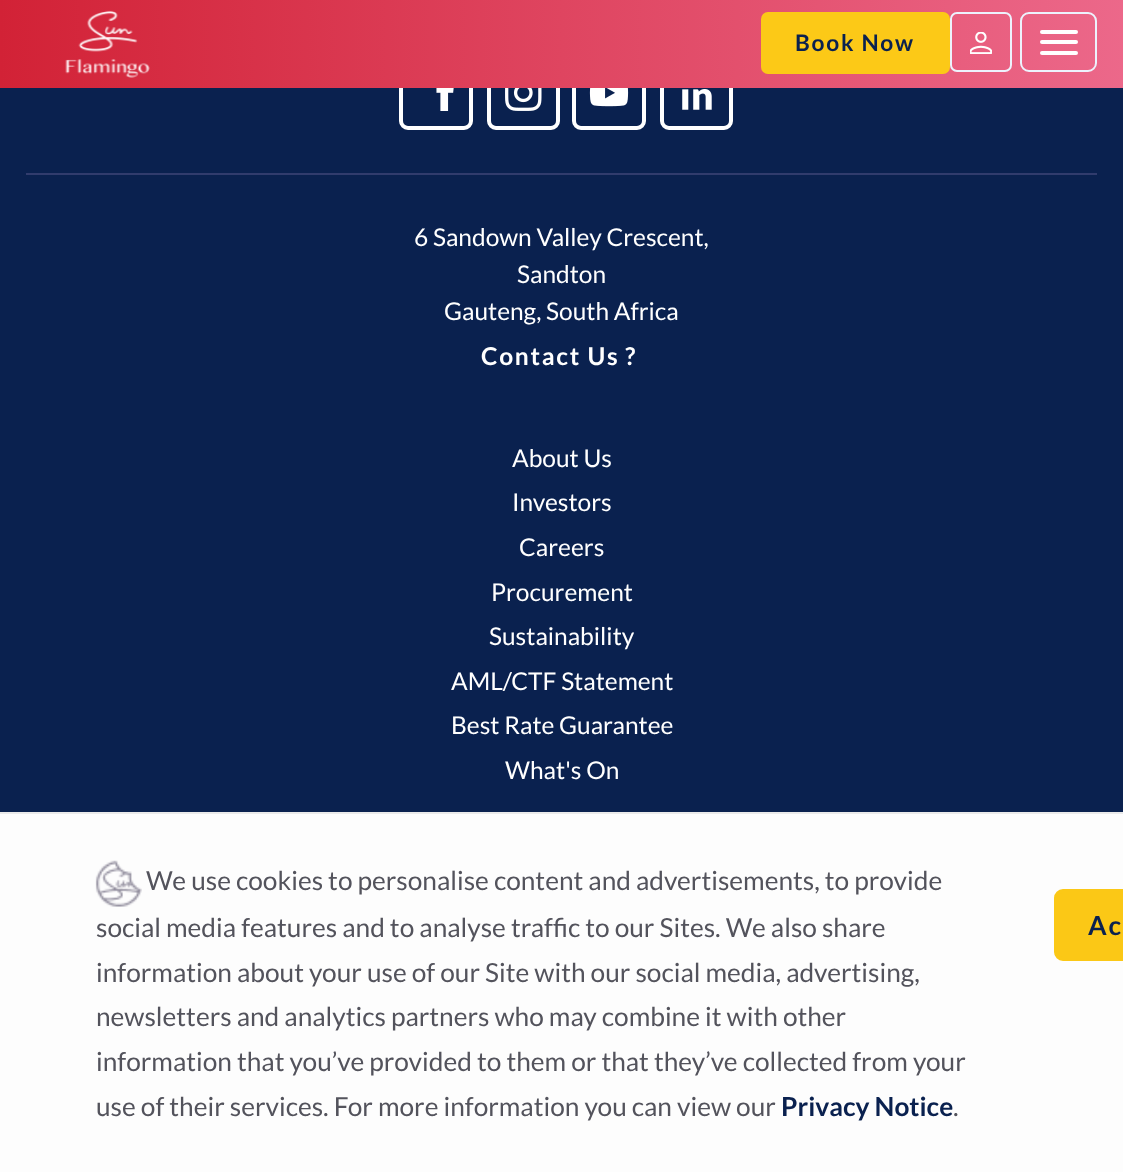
<!DOCTYPE html>
<meta charset="utf-8">
<style>body { margin: 0 } canvas { display: block }</style>
<canvas id="canvas" width="1123" height="1172"></canvas>
<script type="module">
  const canvas = document.getElementById("canvas");
  const ctx = canvas.getContext("2d");
  ctx.miterLimit = 4;
  ctx.fontKerning = "normal";
  async function loadImage(src) {
    const img = new Image();
    img.src = src;
    await img.decode();
    return img;
  }
  let gradient;

  ctx.fillStyle = "#0a214f";
  ctx.fillRect(0, 0, 1123, 1172);
  ctx.beginPath();
  ctx.roundRect(401, 58, 70, 70, 7);
  ctx.strokeStyle = "#ffffff";
  ctx.lineWidth = 4;
  ctx.stroke();
  ctx.beginPath();
  ctx.roundRect(489, 58, 69, 70, 7);
  ctx.stroke();
  ctx.beginPath();
  ctx.roundRect(574, 58, 70, 70, 7);
  ctx.stroke();
  ctx.beginPath();
  ctx.roundRect(662, 58, 69, 70, 7);
  ctx.stroke();
  gradient = ctx.createLinearGradient(0, 44, 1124, 44);
  gradient.addColorStop(0, "#d22236");
  gradient.addColorStop(1, "#ec688a");
  ctx.fillStyle = gradient;
  ctx.fillRect(0, 0, 1123, 88);
  ctx.drawImage(await loadImage("img1.png"), 65, 10, 85, 68);
  ctx.fillStyle = "#fcc917";
  ctx.beginPath();
  ctx.roundRect(761, 12, 189, 62, 7);
  ctx.fill();
  ctx.letterSpacing = "1.75px";
  ctx.font = "bold 22.75px Lato";
  ctx.fillStyle = "#0a214f";
  ctx.fillText("Book Now", 795, 51);
  ctx.beginPath();
  ctx.roundRect(951, 13, 60, 58, 6);
  ctx.strokeStyle = "#edf2fd";
  ctx.lineWidth = 2;
  ctx.stroke();
  ctx.drawImage(await loadImage("img2.png"), 970, 32, 22, 22);
  ctx.beginPath();
  ctx.roundRect(1021, 13, 75, 58, 8);
  ctx.stroke();
  ctx.fillStyle = "#ffffff";
  ctx.beginPath();
  ctx.roundRect(1040, 30, 38, 4, 2);
  ctx.fill();
  ctx.beginPath();
  ctx.roundRect(1040, 40, 38, 4, 2);
  ctx.fill();
  ctx.beginPath();
  ctx.roundRect(1040, 51, 38, 4, 2);
  ctx.fill();
  ctx.drawImage(await loadImage("img3.png"), 436, 88, 18, 23);
  ctx.drawImage(await loadImage("img4.png"), 505, 88, 37, 23);
  ctx.drawImage(await loadImage("img5.png"), 589, 88, 40, 19);
  ctx.drawImage(await loadImage("img6.png"), 682, 89, 30, 21);
  ctx.fillStyle = "#313c6d";
  ctx.fillRect(26, 173, 1071, 2);
  ctx.letterSpacing = "0px";
  ctx.font = "24.5px Lato";
  ctx.fillStyle = "#ffffff";
  ctx.fillText("6 Sandown Valley Crescent,", 414, 246);
  ctx.fillText("Sandton", 517, 283);
  ctx.fillText("Gauteng, South Africa", 444, 320);
  ctx.letterSpacing = "1.75px";
  ctx.font = "bold 24.5px Lato";
  ctx.fillText("Contact Us", 481, 365);
  ctx.fillText("?", 625, 365);
  ctx.letterSpacing = "0px";
  ctx.font = "24.5px Lato";
  ctx.fillText("About Us", 512, 467);
  ctx.fillText("Investors", 512, 511);
  ctx.fillText("Careers", 519, 556);
  ctx.fillText("Procurement", 491, 601);
  ctx.fillText("Sustainability", 489, 645);
  ctx.fillText("AML/CTF Statement", 451, 690);
  ctx.fillText("Best Rate Guarantee", 451, 734);
  ctx.fillText("What's On", 505, 779);
  ctx.fillStyle = "#fdfdfd";
  ctx.fillRect(0, 814, 1123, 358);
  ctx.fillStyle = "#eaeaea";
  ctx.fillRect(0, 812, 1123, 2);
  ctx.drawImage(await loadImage("img7.png"), 95, 860, 47, 47);
  ctx.font = "26.25px Lato";
  ctx.fillStyle = "#53535c";
  ctx.fillText("We use cookies to personalise content and advertisements, to provide", 146, 890);
  ctx.fillText("social media features and to analyse traffic to our Sites. We also share", 96, 937);
  ctx.fillText("information about your use of our Site with our social media, advertising,", 96, 982);
  ctx.fillText("newsletters and analytics partners who may combine it with other", 96, 1026);
  ctx.fillText("information that you’ve provided to them or that they’ve collected from your", 96, 1071);
  ctx.fillText("use of their services. For more information you can view our", 96, 1116);
  ctx.font = "bold 26.25px Lato";
  ctx.fillStyle = "#0a214f";
  ctx.fillText("Privacy Notice", 781, 1116);
  ctx.font = "26.25px Lato";
  ctx.fillStyle = "#53535c";
  ctx.fillText(".", 953, 1116);
  ctx.fillStyle = "#fbc816";
  ctx.beginPath();
  ctx.roundRect(1056, 891, 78, 68, 7);
  ctx.fill();
  ctx.strokeStyle = "#fbc816";
  ctx.lineWidth = 4;
  ctx.stroke();
  ctx.letterSpacing = "1.75px";
  ctx.font = "bold 26.25px Lato";
  ctx.fillStyle = "#0a214f";
  ctx.fillText("Ac", 1088, 935);
</script>
